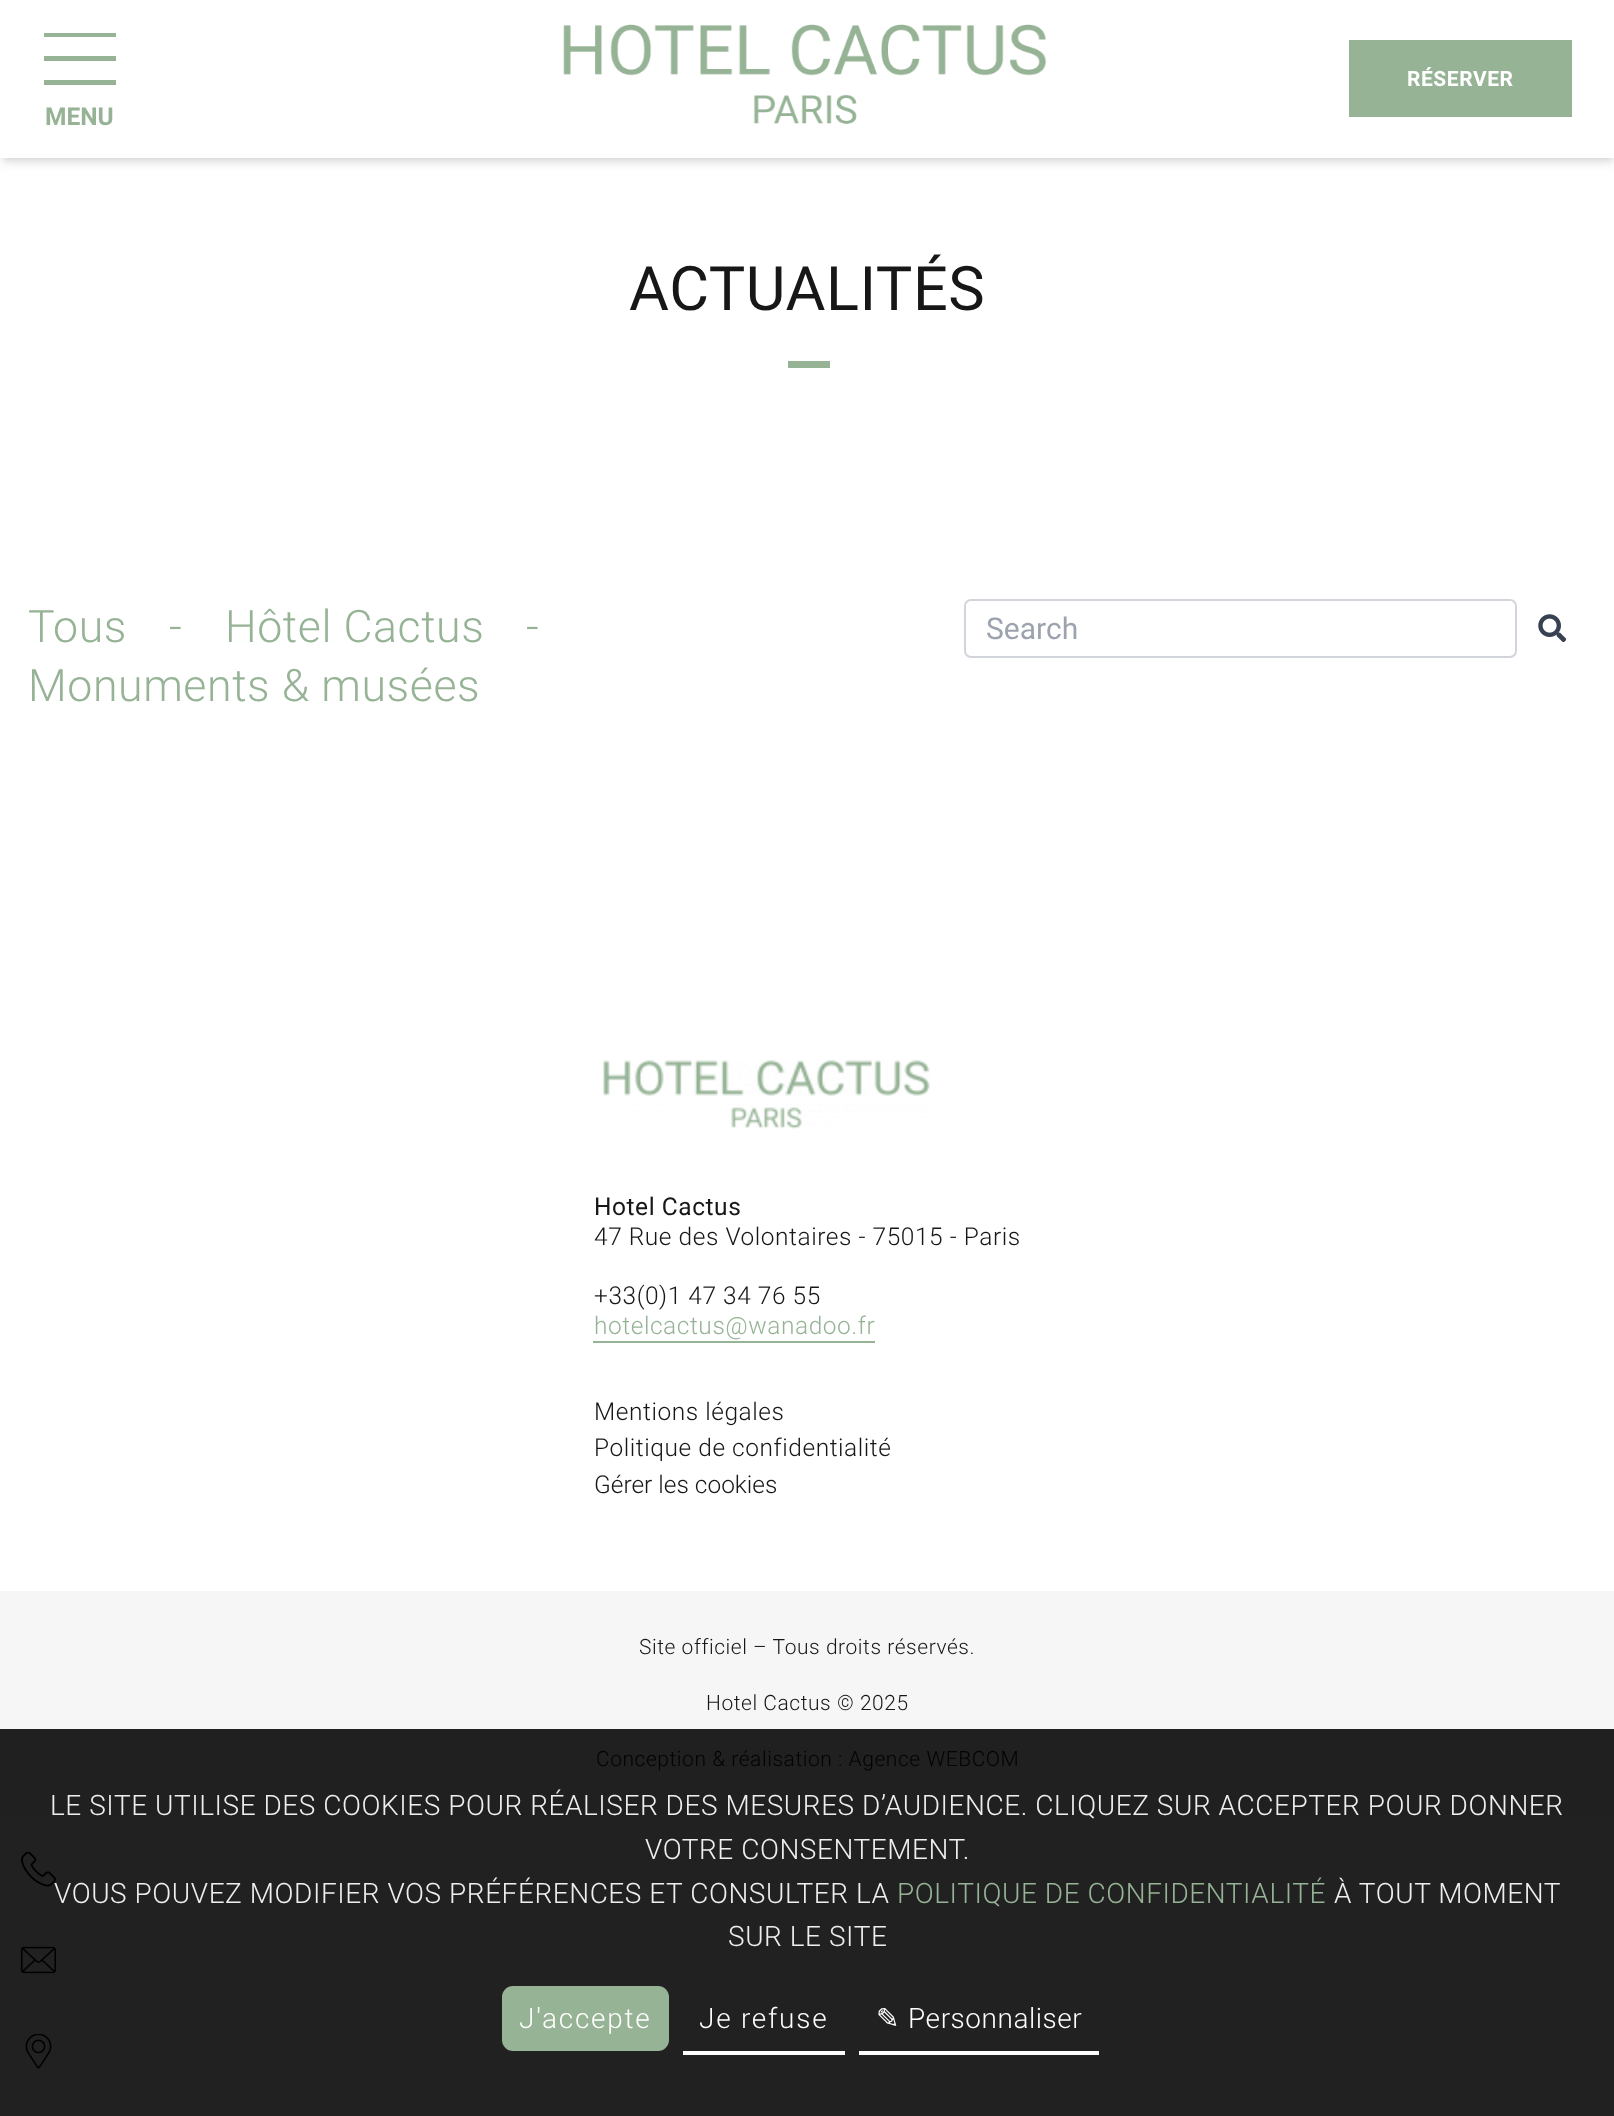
<!DOCTYPE html>
<meta charset="utf-8">
<style>body { margin: 0 } canvas { display: block }</style>
<canvas id="canvas" width="1614" height="2116"></canvas>
<script type="module">
  const canvas = document.getElementById("canvas");
  const ctx = canvas.getContext("2d");
  ctx.miterLimit = 4;
  ctx.fontKerning = "normal";
  async function loadImage(src) {
    const img = new Image();
    img.src = src;
    await img.decode();
    return img;
  }

  ctx.fillStyle = "#ffffff";
  ctx.fillRect(0, 0, 1614, 2116);
  ctx.fillStyle = "#212121";
  ctx.fillRect(0, 1815, 1614, 301);
  ctx.fillStyle = "rgba(0, 0, 0, 0.1)";
  ctx.filter = "blur(3.5px)";
  ctx.beginPath();
  ctx.rect(4, 7, 1608, 151);
  ctx.fill();
  ctx.filter = "none";
  ctx.filter = "blur(5px)";
  ctx.beginPath();
  ctx.rect(2, 9, 1612, 154);
  ctx.fill();
  ctx.filter = "none";
  ctx.fillStyle = "#ffffff";
  ctx.fillRect(0, 1, 1614, 157);
  ctx.drawImage(await loadImage("img1.png"), 563, 24, 484, 100);
  ctx.fillStyle = "#96b396";
  ctx.fillRect(1349, 40, 223, 77);
  ctx.letterSpacing = "0.55px";
  ctx.font = "bold 21px Roboto";
  ctx.fillStyle = "#ffffff";
  ctx.fillText("RÉSERVER", 1407, 86);
  ctx.fillStyle = "#96b396";
  ctx.fillRect(44, 33, 72, 4);
  ctx.fillRect(44, 56, 72, 5);
  ctx.fillRect(44, 80, 72, 5);
  ctx.letterSpacing = "0px";
  ctx.font = "bold 24.5px Roboto";
  ctx.fillText("MENU", 45, 125);
  ctx.letterSpacing = "0.55px";
  ctx.font = "61.25px Roboto";
  ctx.fillStyle = "#171717";
  ctx.fillText("ACTUALITÉS", 629, 310);
  ctx.fillStyle = "#96b396";
  ctx.fillRect(788, 361, 42, 7);
  ctx.font = "300 44.75px Roboto";
  ctx.fillText("Tous", 28, 642);
  ctx.fillText("-", 169, 642);
  ctx.fillText("Hôtel Cactus", 225, 642);
  ctx.fillText("-", 526, 642);
  ctx.fillText("Monuments & musées", 28, 701);
  ctx.beginPath();
  ctx.roundRect(965, 600, 551, 57, 6);
  ctx.strokeStyle = "#d1d5db";
  ctx.lineWidth = 2;
  ctx.stroke();
  ctx.letterSpacing = "0px";
  ctx.font = "30px Roboto";
  ctx.fillStyle = "#9ca3af";
  ctx.fillText("Search", 986, 639);
  ctx.drawImage(await loadImage("img2.png"), 1538, 614, 28, 28);
  ctx.drawImage(await loadImage("img3.png"), 603, 1060, 327, 69);
  ctx.letterSpacing = "0.55px";
  ctx.font = "24.5px Roboto";
  ctx.fillStyle = "#171717";
  ctx.fillText("Hotel Cactus", 594, 1215);
  ctx.font = "300 24.5px Roboto";
  ctx.fillText("47 Rue des Volontaires - 75015 - Paris", 594, 1245);
  ctx.fillText("+33(0)1 47 34 76 55", 594, 1304);
  ctx.fillStyle = "#96b396";
  ctx.fillText("hotelcactus@wanadoo.fr", 594, 1334);
  ctx.fillRect(593, 1341, 282, 2);
  ctx.fillStyle = "#171717";
  ctx.fillText("Mentions légales", 594, 1420);
  ctx.fillText("Politique de confidentialité", 594, 1456);
  ctx.letterSpacing = "0px";
  ctx.fillText("Gérer les cookies", 594, 1493);
  ctx.fillStyle = "#f6f6f6";
  ctx.fillRect(0, 1591, 1614, 138);
  ctx.fillStyle = "#202020";
  ctx.fillRect(0, 1729, 1614, 86);
  ctx.letterSpacing = "0.55px";
  ctx.font = "300 21px Roboto";
  ctx.fillStyle = "#171717";
  ctx.fillText("Site officiel – Tous droits réservés.", 639, 1654);
  ctx.fillText("Hotel Cactus © 2025", 706, 1710);
  ctx.fillStyle = "#030303";
  ctx.fillText("Conception & réalisation : Agence WEBCOM", 596, 1766);
  ctx.drawImage(await loadImage("img4.png"), 21, 1852, 35, 35);
  ctx.drawImage(await loadImage("img5.png"), 21, 1946, 35, 28);
  ctx.drawImage(await loadImage("img6.png"), 25, 2034, 27, 35);
  ctx.font = "300 28px Roboto";
  ctx.fillStyle = "#eeeeee";
  ctx.fillText("LE SITE UTILISE DES COOKIES POUR RÉALISER DES MESURES D’AUDIENCE. CLIQUEZ SUR ACCEPTER POUR DONNER", 50, 1815);
  ctx.fillText("VOTRE CONSENTEMENT.", 645, 1859);
  ctx.fillText("VOUS POUVEZ MODIFIER VOS PRÉFÉRENCES ET CONSULTER LA", 54, 1903);
  ctx.fillStyle = "#96b396";
  ctx.fillText("POLITIQUE DE CONFIDENTIALITÉ", 897, 1903);
  ctx.fillStyle = "#eeeeee";
  ctx.fillText("À TOUT MOMENT", 1334, 1903);
  ctx.fillText("SUR LE SITE", 728, 1946);
  ctx.fillStyle = "#96b396";
  ctx.beginPath();
  ctx.roundRect(502, 1986, 167, 65, 11);
  ctx.fill();
  ctx.letterSpacing = "1.75px";
  ctx.fillStyle = "#ffffff";
  ctx.fillText("J'accepte", 519, 2028);
  ctx.fillRect(683, 2051, 162, 4);
  ctx.fillText("Je refuse", 699, 2028);
  ctx.fillRect(859, 2051, 240, 4);
  ctx.letterSpacing = "0.55px";
  ctx.font = "28px DejaVu Sans";
  ctx.fillText("✎", 876, 2028);
  ctx.font = "300 28px Roboto";
  ctx.fillText("Personnaliser", 908, 2028);
</script>
